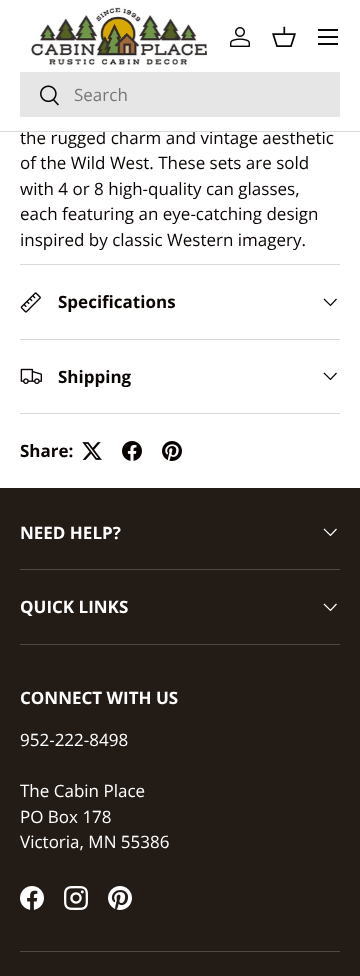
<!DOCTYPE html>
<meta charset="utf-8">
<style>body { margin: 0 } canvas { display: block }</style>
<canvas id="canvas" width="360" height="976"></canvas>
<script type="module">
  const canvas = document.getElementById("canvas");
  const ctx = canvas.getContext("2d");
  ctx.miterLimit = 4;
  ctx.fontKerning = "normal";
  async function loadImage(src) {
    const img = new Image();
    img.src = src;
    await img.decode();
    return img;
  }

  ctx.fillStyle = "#ffffff";
  ctx.fillRect(0, 0, 360, 976);
  ctx.font = "17px Open Sans";
  ctx.fillStyle = "#090302";
  ctx.fillText("the rugged charm and vintage aesthetic", 20, 144);
  ctx.fillStyle = "#dadada";
  ctx.fillRect(0, 131, 360, 1);
  ctx.drawImage(await loadImage("img1.png"), 31, 7, 176, 58);
  ctx.drawImage(await loadImage("img2.png"), 230, 27, 20, 20);
  ctx.drawImage(await loadImage("img3.png"), 272, 26, 24, 21);
  ctx.fillStyle = "#070707";
  ctx.fillRect(318, 29, 20, 2);
  ctx.fillRect(318, 43, 20, 2);
  ctx.fillRect(318, 36, 20, 2);
  ctx.fillStyle = "#e6e6e6";
  ctx.fillRect(20, 72, 320, 45);
  ctx.drawImage(await loadImage("img4.png"), 40, 85, 19, 21);
  ctx.fillStyle = "#777777";
  ctx.fillText("Search", 74, 101);
  ctx.fillStyle = "#090302";
  ctx.fillText("of the Wild West. These sets are sold", 20, 169);
  ctx.fillText("with 4 or 8 high-quality can glasses,", 20, 195);
  ctx.fillText("each featuring an eye-catching design", 20, 220);
  ctx.fillText("inspired by classic Western imagery.", 20, 246);
  ctx.fillStyle = "#dad9d9";
  ctx.fillRect(20, 264, 320, 1);
  ctx.fillRect(20, 339, 320, 1);
  ctx.drawImage(await loadImage("img5.png"), 20, 292, 21, 21);
  ctx.font = "bold 17px Open Sans";
  ctx.fillStyle = "#090302";
  ctx.fillText("Specifications", 58, 308);
  ctx.beginPath();
  ctx.moveTo(336.5, 299);
  ctx.lineTo(330.5, 305.5);
  ctx.lineTo(324, 299);
  ctx.strokeStyle = "#090302";
  ctx.lineWidth = 1.2;
  ctx.stroke();
  ctx.fillStyle = "#dad9d9";
  ctx.fillRect(20, 413, 320, 1);
  ctx.drawImage(await loadImage("img6.png"), 20, 368, 22, 16);
  ctx.fillStyle = "#090302";
  ctx.fillText("Shipping", 58, 383);
  ctx.beginPath();
  ctx.moveTo(336.5, 373);
  ctx.lineTo(330.5, 379.5);
  ctx.lineTo(324, 373);
  ctx.stroke();
  ctx.fillText("Share:", 20, 457);
  ctx.drawImage(await loadImage("img7.png"), 82, 442, 20, 18);
  ctx.drawImage(await loadImage("img8.png"), 122, 441, 20, 20);
  ctx.drawImage(await loadImage("img9.png"), 162, 441, 20, 20);
  ctx.fillStyle = "#231b16";
  ctx.fillRect(0, 488, 360, 488);
  ctx.fillStyle = "#4f4945";
  ctx.fillRect(20, 569, 320, 1);
  ctx.fillStyle = "#ffffff";
  ctx.fillText("NEED HELP?", 20, 539);
  ctx.beginPath();
  ctx.moveTo(336.5, 529);
  ctx.lineTo(330.5, 535.5);
  ctx.lineTo(324, 529);
  ctx.strokeStyle = "#ffffff";
  ctx.stroke();
  ctx.fillStyle = "#4f4945";
  ctx.fillRect(20, 644, 320, 1);
  ctx.fillStyle = "#ffffff";
  ctx.fillText("QUICK LINKS", 20, 613);
  ctx.beginPath();
  ctx.moveTo(336.5, 604);
  ctx.lineTo(330.5, 610.5);
  ctx.lineTo(324, 604);
  ctx.stroke();
  ctx.fillText("CONNECT WITH US", 20, 704);
  ctx.font = "17px Open Sans";
  ctx.fillText("952-222-8498", 20, 746);
  ctx.fillText("The Cabin Place", 20, 797);
  ctx.fillText("PO Box 178", 20, 823);
  ctx.fillText("Victoria, MN 55386", 20, 848);
  ctx.drawImage(await loadImage("img10.png"), 20, 886, 24, 24);
  ctx.drawImage(await loadImage("img11.png"), 64, 886, 24, 24);
  ctx.drawImage(await loadImage("img12.png"), 108, 886, 24, 24);
  ctx.fillStyle = "#4f4945";
  ctx.fillRect(20, 951, 320, 1);
</script>
